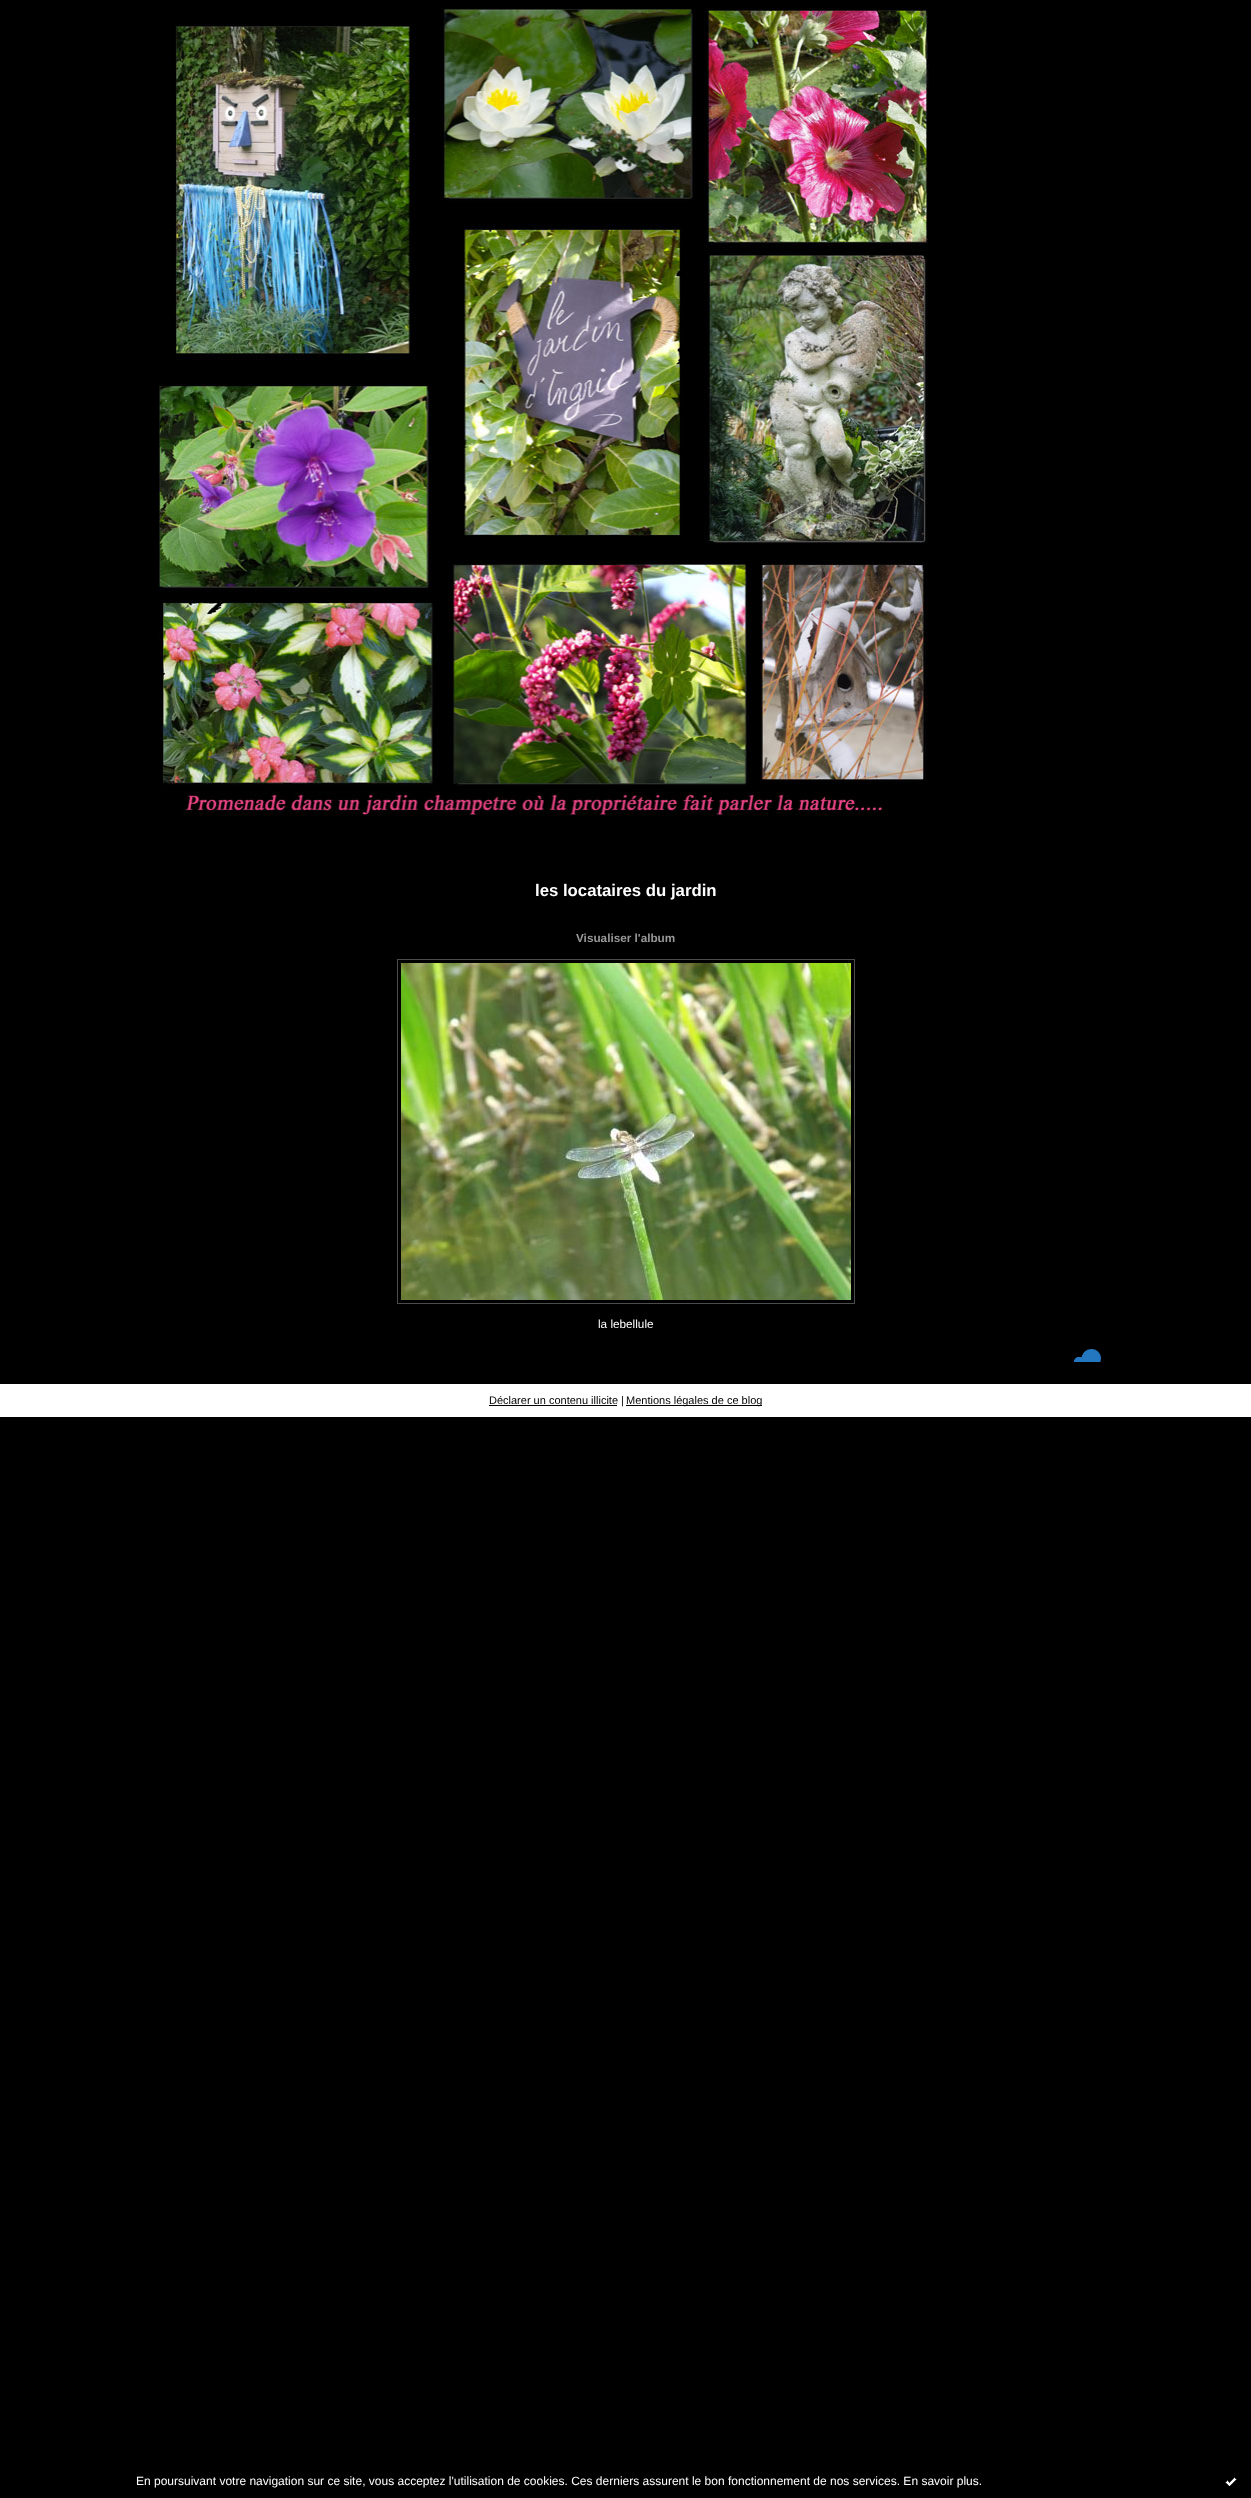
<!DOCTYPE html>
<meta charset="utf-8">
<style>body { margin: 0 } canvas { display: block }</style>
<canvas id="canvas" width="1251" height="2498"></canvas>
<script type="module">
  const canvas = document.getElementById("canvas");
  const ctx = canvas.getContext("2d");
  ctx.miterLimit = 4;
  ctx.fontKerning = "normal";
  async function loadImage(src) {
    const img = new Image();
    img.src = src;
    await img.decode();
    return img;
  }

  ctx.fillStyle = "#000000";
  ctx.fillRect(0, 0, 1251, 2498);
  ctx.drawImage(await loadImage("img1.png"), 1074, 1349, 27, 13);
  ctx.drawImage(await loadImage("img2.png"), 159, 8, 770, 808);
  ctx.font = "bold 16.75px Liberation Sans";
  ctx.fillStyle = "#ffffff";
  ctx.fillText("les locataires du jardin", 535, 896);
  ctx.font = "bold 11.75px Liberation Sans";
  ctx.fillStyle = "#999999";
  ctx.fillText("Visualiser l'album", 576, 942);
  ctx.strokeStyle = "#4c4c4c";
  ctx.strokeRect(397.5, 959.5, 457, 344);
  ctx.drawImage(await loadImage("img3.png"), 401, 963, 450, 337);
  ctx.font = "11.75px Liberation Sans";
  ctx.fillStyle = "#ffffff";
  ctx.fillText("la lebellule", 598, 1328);
  ctx.fillRect(0, 1384, 1251, 33);
  ctx.fillStyle = "#000000";
  ctx.fillRect(489, 1405, 128, 1);
  ctx.font = "11px Liberation Sans";
  ctx.fillText("Déclarer un contenu illicite |", 489, 1404);
  ctx.fillRect(626, 1405, 136, 1);
  ctx.fillText("Mentions légales de ce blog", 626, 1404);
  ctx.font = "12px Liberation Sans";
  ctx.fillStyle = "#ffffff";
  ctx.fillText("En poursuivant votre navigation sur ce site, vous acceptez l'utilisation de cookies. Ces derniers assurent le bon fonctionnement de nos services. En savoir plus.", 136, 2485);
  ctx.drawImage(await loadImage("img4.png"), 1225, 2477, 12, 9);
</script>
